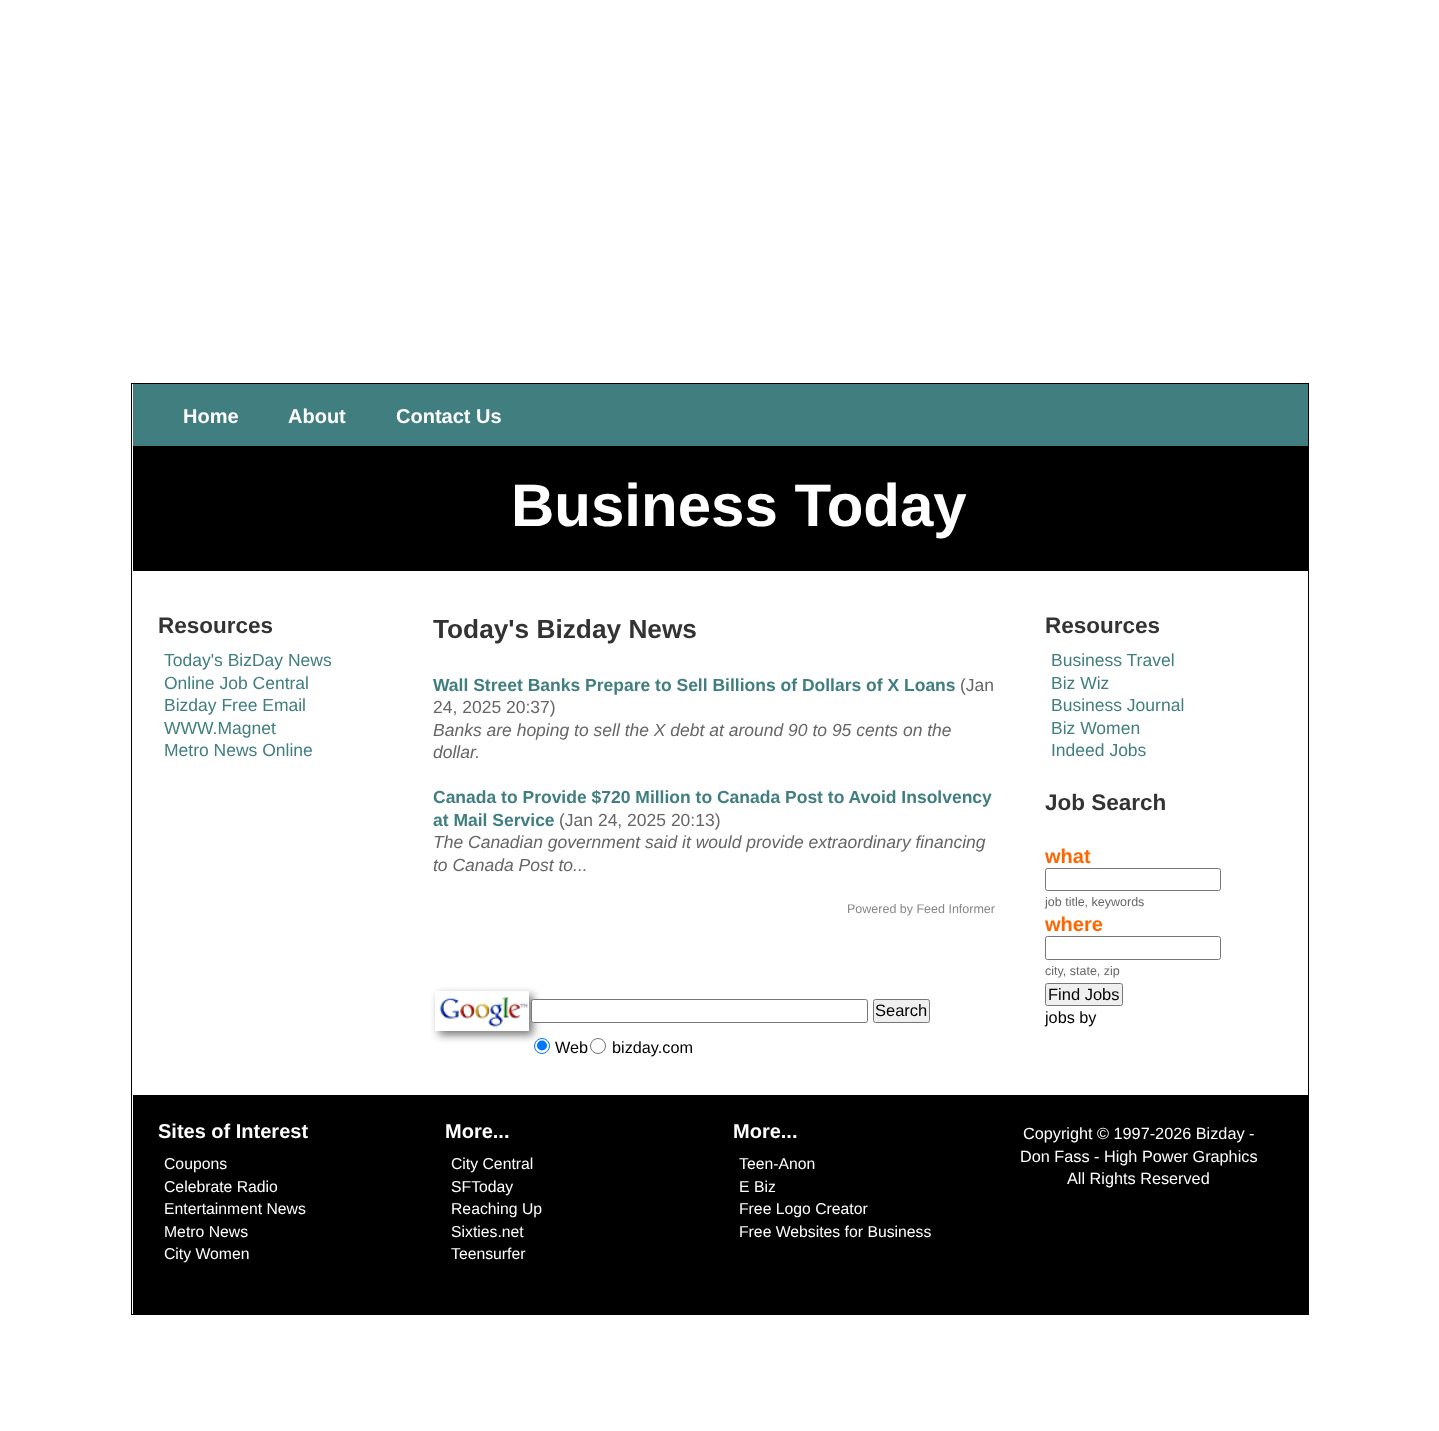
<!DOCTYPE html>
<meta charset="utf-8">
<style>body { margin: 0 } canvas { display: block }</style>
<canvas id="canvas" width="1439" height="1431"></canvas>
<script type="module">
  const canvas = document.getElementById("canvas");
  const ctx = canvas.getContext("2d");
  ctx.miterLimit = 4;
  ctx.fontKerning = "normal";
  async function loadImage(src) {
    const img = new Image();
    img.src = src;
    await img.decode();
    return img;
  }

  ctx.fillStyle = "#ffffff";
  ctx.fillRect(0, 0, 1439, 1431);
  ctx.strokeStyle = "#000000";
  ctx.strokeRect(131.5, 383.5, 1177, 931);
  ctx.fillStyle = "#407e80";
  ctx.fillRect(133, 384, 1175, 62);
  ctx.font = "bold 20px Liberation Sans";
  ctx.fillStyle = "#ffffff";
  ctx.fillText("Home", 183, 423);
  ctx.fillText("About", 288, 423);
  ctx.fillText("Contact Us", 396, 423);
  ctx.fillStyle = "#000000";
  ctx.fillRect(133, 446, 1175, 125);
  ctx.font = "bold 60px Liberation Sans";
  ctx.fillStyle = "#ffffff";
  ctx.fillText("Business Today", 511, 526);
  ctx.font = "bold 22.5px Liberation Sans";
  ctx.fillStyle = "#333333";
  ctx.fillText("Resources", 158, 633);
  ctx.font = "17.5px Liberation Sans";
  ctx.fillStyle = "#407e80";
  ctx.fillText("Today's BizDay News", 164, 666);
  ctx.fillText("Online Job Central", 164, 689);
  ctx.fillText("Bizday Free Email", 164, 711);
  ctx.fillText("WWW.Magnet", 164, 734);
  ctx.fillText("Metro News Online", 164, 756);
  ctx.font = "bold 26.25px Liberation Sans";
  ctx.fillStyle = "#333333";
  ctx.fillText("Today's Bizday News", 433, 638);
  ctx.font = "bold 17.5px Liberation Sans";
  ctx.fillStyle = "#407e80";
  ctx.fillText("Wall Street Banks Prepare to Sell Billions of Dollars of X Loans", 433, 691);
  ctx.font = "17.5px Liberation Sans";
  ctx.fillStyle = "#666666";
  ctx.fillText("(Jan", 960, 691);
  ctx.fillText("24, 2025 20:37)", 433, 713);
  ctx.font = "italic 17.5px Liberation Sans";
  ctx.fillText("Banks are hoping to sell the X debt at around 90 to 95 cents on the", 433, 736);
  ctx.fillText("dollar.", 433, 758);
  ctx.font = "bold 17.5px Liberation Sans";
  ctx.fillStyle = "#407e80";
  ctx.fillText("Canada to Provide $720 Million to Canada Post to Avoid Insolvency", 433, 803);
  ctx.fillText("at Mail Service", 433, 826);
  ctx.font = "17.5px Liberation Sans";
  ctx.fillStyle = "#666666";
  ctx.fillText("(Jan 24, 2025 20:13)", 559, 826);
  ctx.font = "italic 17.5px Liberation Sans";
  ctx.fillText("The Canadian government said it would provide extraordinary financing", 433, 848);
  ctx.fillText("to Canada Post to...", 433, 871);
  ctx.font = "12.5px Liberation Sans";
  ctx.fillStyle = "#888888";
  ctx.fillText("Powered by Feed Informer", 847, 913);
  ctx.save();
  ctx.beginPath();
  ctx.moveTo(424, 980);
  ctx.lineTo(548, 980);
  ctx.lineTo(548, 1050);
  ctx.lineTo(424, 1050);
  ctx.closePath();
  ctx.moveTo(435, 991);
  ctx.lineTo(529, 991);
  ctx.lineTo(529, 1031);
  ctx.lineTo(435, 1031);
  ctx.closePath();
  ctx.clip("evenodd");
  ctx.fillStyle = "#777777";
  ctx.filter = "blur(4.5px)";
  ctx.beginPath();
  ctx.rect(439, 995, 94, 40);
  ctx.fill();
  ctx.filter = "none";
  ctx.restore();
  ctx.drawImage(await loadImage("img1.png"), 439, 997, 89, 30);
  ctx.fillStyle = "#ffffff";
  ctx.beginPath();
  ctx.roundRect(531.5, 999.5, 336, 23, 2);
  ctx.fill();
  ctx.strokeStyle = "#767676";
  ctx.stroke();
  ctx.fillStyle = "#efefef";
  ctx.beginPath();
  ctx.roundRect(873.5, 999.5, 56, 23, 2);
  ctx.fill();
  ctx.stroke();
  ctx.font = "16.5px Liberation Sans";
  ctx.fillStyle = "#000000";
  ctx.fillText("Search", 875, 1016);
  ctx.beginPath();
  ctx.arc(542, 1046, 7.5, 0, Math.PI * 2);
  ctx.strokeStyle = "#0075ff";
  ctx.stroke();
  ctx.fillStyle = "#0075ff";
  ctx.beginPath();
  ctx.arc(542, 1045.5, 5, 0, Math.PI * 2);
  ctx.fill();
  ctx.font = "16.25px Liberation Sans";
  ctx.fillStyle = "#000000";
  ctx.fillText("Web", 555, 1053);
  ctx.beginPath();
  ctx.arc(598, 1046, 7.5, 0, Math.PI * 2);
  ctx.strokeStyle = "#767676";
  ctx.stroke();
  ctx.fillText("bizday.com", 612, 1053);
  ctx.font = "bold 22.5px Liberation Sans";
  ctx.fillStyle = "#333333";
  ctx.fillText("Resources", 1045, 633);
  ctx.font = "17.5px Liberation Sans";
  ctx.fillStyle = "#407e80";
  ctx.fillText("Business Travel", 1051, 666);
  ctx.fillText("Biz Wiz", 1051, 689);
  ctx.fillText("Business Journal", 1051, 711);
  ctx.fillText("Biz Women", 1051, 734);
  ctx.fillText("Indeed Jobs", 1051, 756);
  ctx.font = "bold 22.5px Liberation Sans";
  ctx.fillStyle = "#333333";
  ctx.fillText("Job Search", 1045, 810);
  ctx.font = "bold 20px Liberation Sans";
  ctx.fillStyle = "#ff6600";
  ctx.fillText("what", 1045, 863);
  ctx.beginPath();
  ctx.roundRect(1045.5, 868.5, 175, 22, 2);
  ctx.stroke();
  ctx.font = "12.5px Liberation Sans";
  ctx.fillStyle = "#666666";
  ctx.fillText("job title, keywords", 1045, 906);
  ctx.font = "bold 20px Liberation Sans";
  ctx.fillStyle = "#ff6600";
  ctx.fillText("where", 1045, 931);
  ctx.beginPath();
  ctx.roundRect(1045.5, 936.5, 175, 23, 2);
  ctx.stroke();
  ctx.font = "12.5px Liberation Sans";
  ctx.fillStyle = "#666666";
  ctx.fillText("city, state, zip", 1045, 975);
  ctx.fillStyle = "#efefef";
  ctx.beginPath();
  ctx.roundRect(1045.5, 983.5, 77, 22, 2);
  ctx.fill();
  ctx.stroke();
  ctx.font = "16.5px Liberation Sans";
  ctx.fillStyle = "#000000";
  ctx.fillText("Find Jobs", 1048, 1000);
  ctx.font = "16.25px Liberation Sans";
  ctx.fillText("jobs by", 1045, 1023);
  ctx.fillRect(133, 1095, 1175, 219);
  ctx.font = "bold 20px Liberation Sans";
  ctx.fillStyle = "#ffffff";
  ctx.fillText("Sites of Interest", 158, 1138);
  ctx.font = "15.75px Liberation Sans";
  ctx.fillText("Coupons", 164, 1169);
  ctx.fillText("Celebrate Radio", 164, 1192);
  ctx.fillText("Entertainment News", 164, 1214);
  ctx.fillText("Metro News", 164, 1237);
  ctx.fillText("City Women", 164, 1259);
  ctx.font = "bold 20px Liberation Sans";
  ctx.fillText("More...", 445, 1138);
  ctx.font = "15.75px Liberation Sans";
  ctx.fillText("City Central", 451, 1169);
  ctx.fillText("SFToday", 451, 1192);
  ctx.fillText("Reaching Up", 451, 1214);
  ctx.fillText("Sixties.net", 451, 1237);
  ctx.fillText("Teensurfer", 451, 1259);
  ctx.font = "bold 20px Liberation Sans";
  ctx.fillText("More...", 733, 1138);
  ctx.font = "15.75px Liberation Sans";
  ctx.fillText("Teen-Anon", 739, 1169);
  ctx.fillText("E Biz", 739, 1192);
  ctx.fillText("Free Logo Creator", 739, 1214);
  ctx.fillText("Free Websites for Business", 739, 1237);
  ctx.font = "16.25px Liberation Sans";
  ctx.fillText("Copyright © 1997-2026 Bizday -", 1023, 1139);
  ctx.fillText("Don Fass - High Power Graphics", 1020, 1162);
  ctx.fillText("All Rights Reserved", 1067, 1184);
</script>
